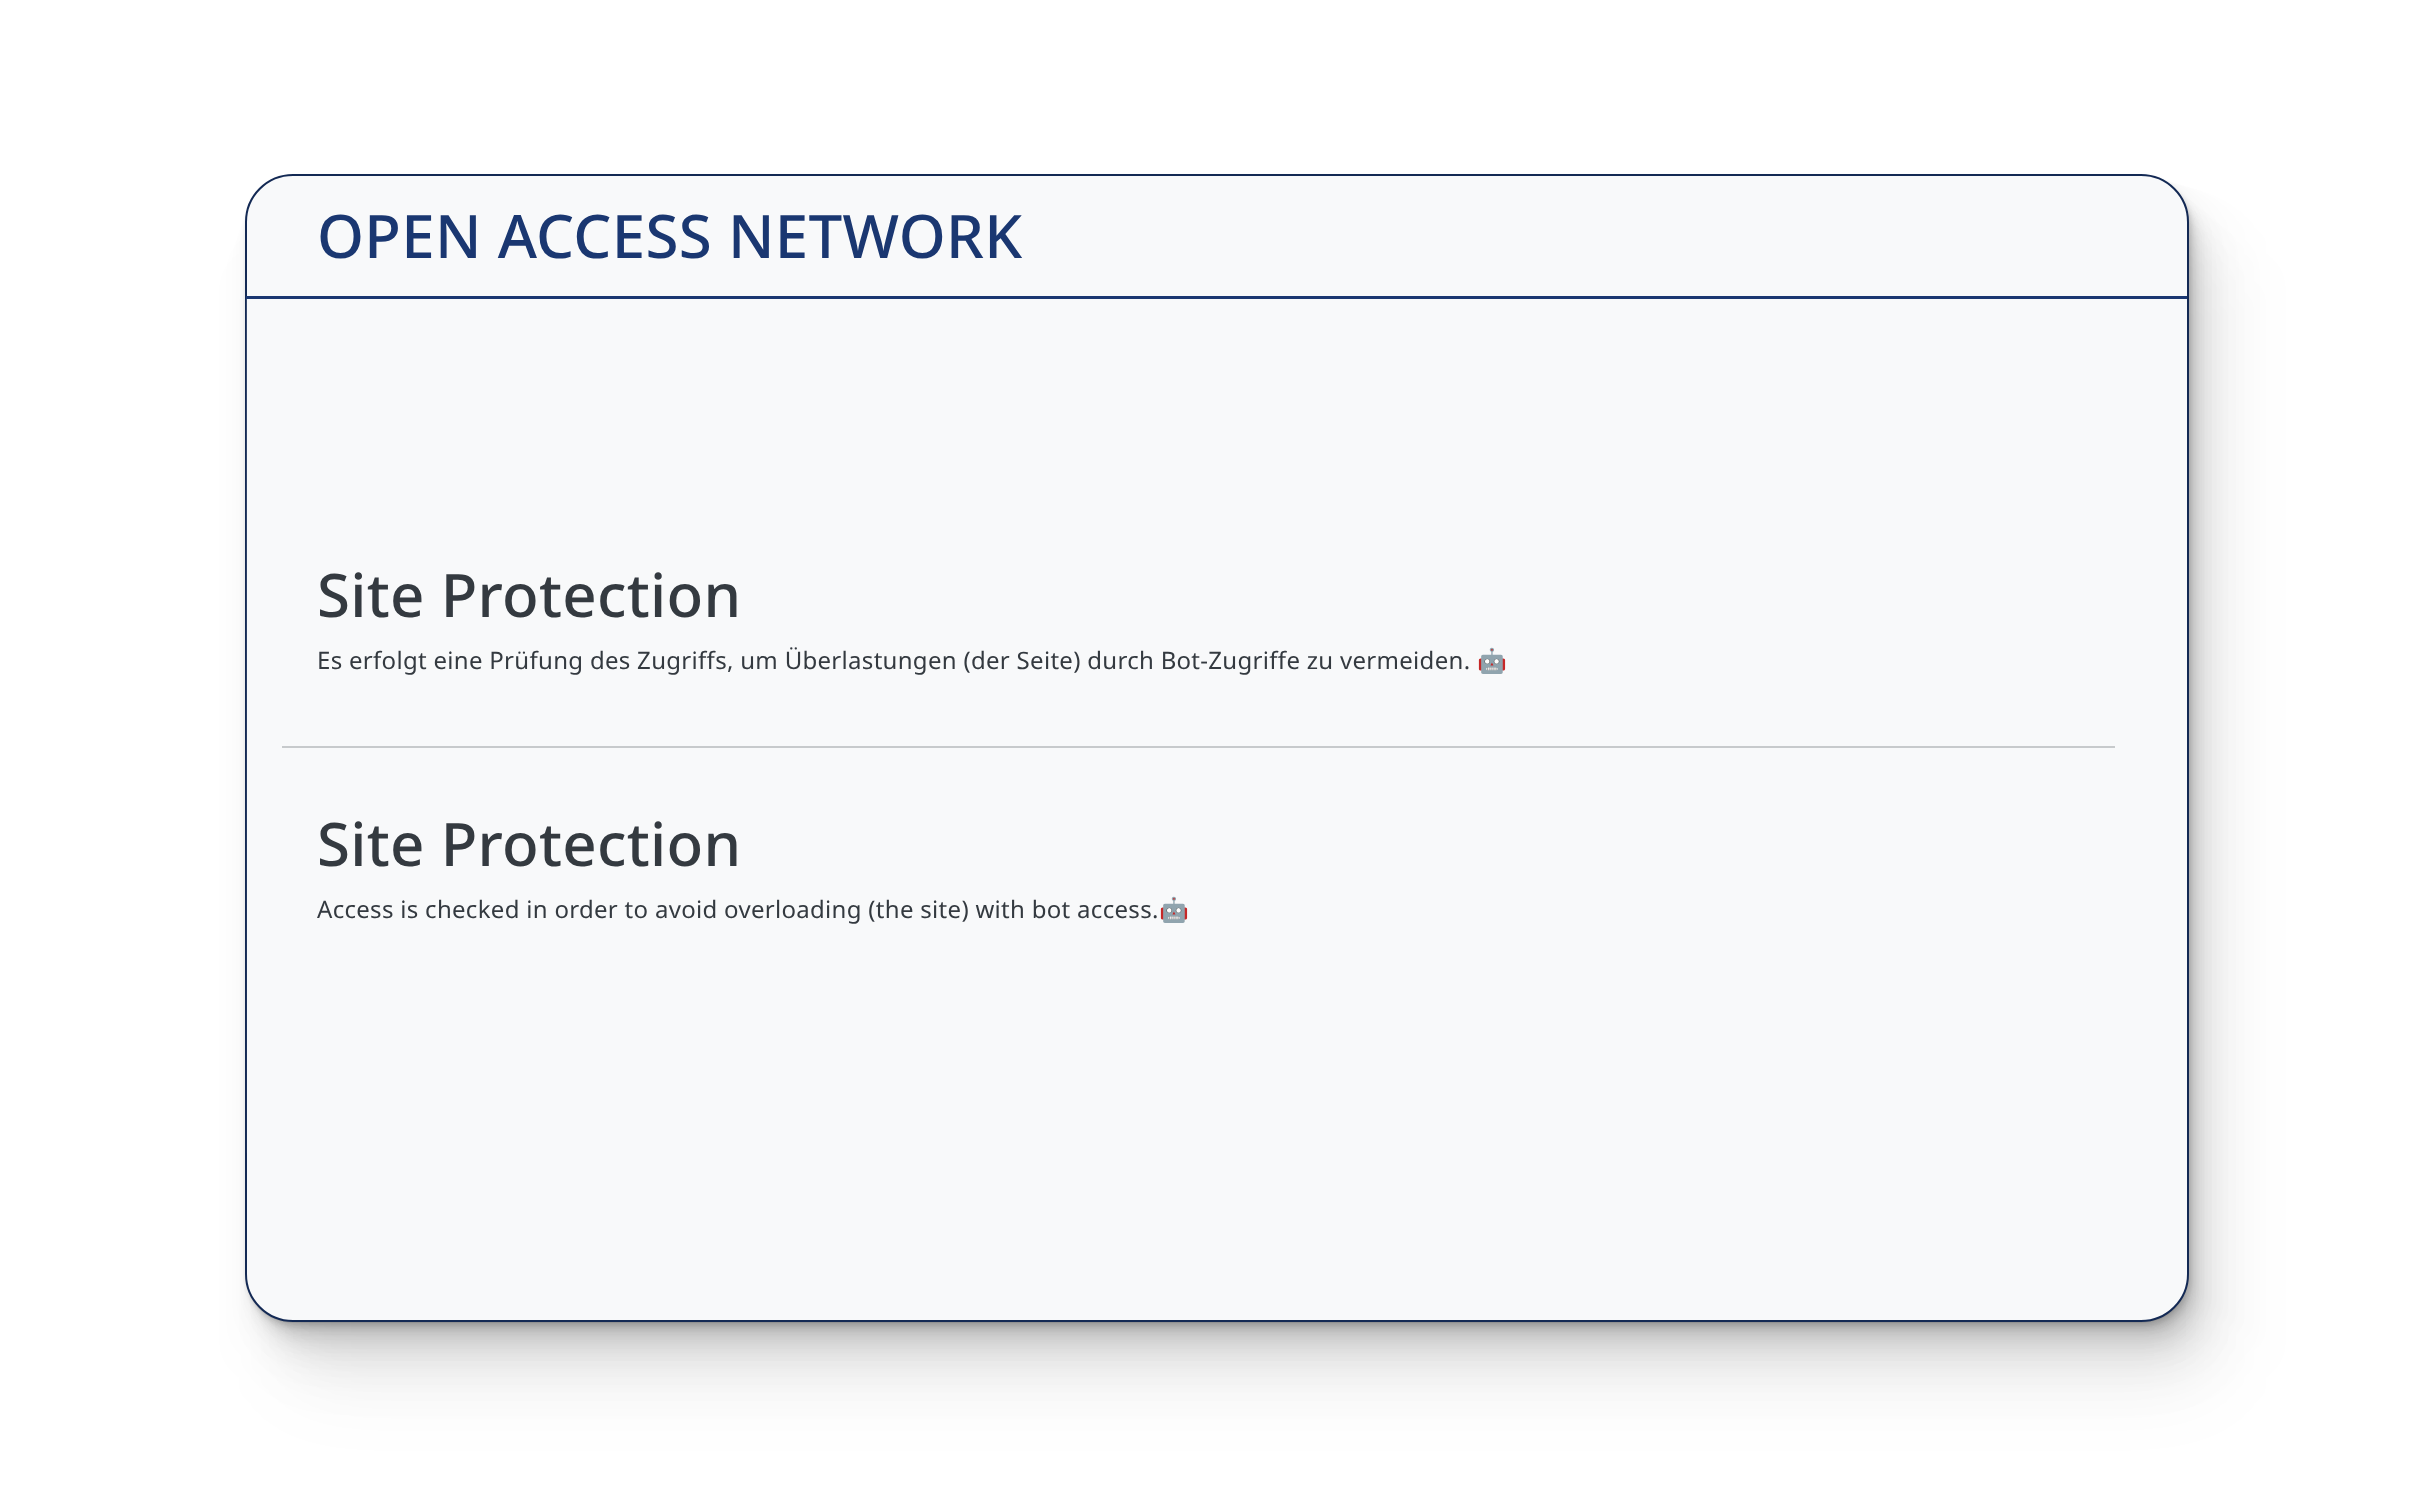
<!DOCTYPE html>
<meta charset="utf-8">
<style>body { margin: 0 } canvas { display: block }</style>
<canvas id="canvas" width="2431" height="1495"></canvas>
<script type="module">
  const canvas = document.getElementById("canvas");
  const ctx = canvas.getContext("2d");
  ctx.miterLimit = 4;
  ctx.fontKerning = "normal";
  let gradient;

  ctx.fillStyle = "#ffffff";
  ctx.fillRect(0, 0, 2431, 1495);
  ctx.fillStyle = "rgba(0, 0, 0, 0.05)";
  ctx.filter = "blur(39.5px)";
  ctx.beginPath();
  ctx.roundRect(285, 246, 1935, 1139, 44);
  ctx.fill();
  ctx.filter = "none";
  ctx.filter = "blur(29px)";
  ctx.beginPath();
  ctx.roundRect(275, 228, 1936, 1139, 44);
  ctx.fill();
  ctx.filter = "none";
  ctx.filter = "blur(21px)";
  ctx.beginPath();
  ctx.roundRect(267, 213, 1937, 1140, 45);
  ctx.fill();
  ctx.filter = "none";
  ctx.filter = "blur(15px)";
  ctx.beginPath();
  ctx.roundRect(261, 203, 1938, 1141, 45);
  ctx.fill();
  ctx.filter = "none";
  ctx.fillStyle = "rgba(0, 0, 0, 0.06)";
  ctx.filter = "blur(10px)";
  ctx.beginPath();
  ctx.roundRect(257, 194, 1938, 1143, 45);
  ctx.fill();
  ctx.filter = "none";
  ctx.filter = "blur(7px)";
  ctx.beginPath();
  ctx.roundRect(252, 188, 1941, 1143, 47);
  ctx.fill();
  ctx.filter = "none";
  ctx.filter = "blur(4.5px)";
  ctx.beginPath();
  ctx.roundRect(251, 183, 1941, 1145, 47);
  ctx.fill();
  ctx.filter = "none";
  ctx.filter = "blur(3px)";
  ctx.beginPath();
  ctx.roundRect(249, 180, 1941, 1146, 47);
  ctx.fill();
  ctx.filter = "none";
  ctx.filter = "blur(2px)";
  ctx.beginPath();
  ctx.roundRect(246, 177, 1944, 1148, 48);
  ctx.fill();
  ctx.filter = "none";
  ctx.fillStyle = "rgba(0, 0, 0, 0.07)";
  ctx.filter = "blur(0.5px)";
  ctx.beginPath();
  ctx.roundRect(245, 176, 1944, 1147, 48);
  ctx.fill();
  ctx.filter = "none";
  ctx.fillStyle = "#f8f9fa";
  ctx.beginPath();
  ctx.roundRect(246, 175, 1942, 1146, 47);
  ctx.fill();
  ctx.strokeStyle = "#132954";
  ctx.lineWidth = 2;
  ctx.stroke();
  ctx.letterSpacing = "0.3px";
  ctx.font = "500 60px Noto Sans";
  ctx.fillStyle = "#1a3771";
  ctx.fillText("OPEN ACCESS NETWORK", 317, 258);
  gradient = ctx.createLinearGradient(1217, 298, 1217, 1296);
  gradient.addColorStop(0, "rgba(255, 255, 255, 0.15)");
  gradient.addColorStop(1, "rgba(255, 255, 255, 0)");
  ctx.fillStyle = gradient;
  ctx.fillRect(246, 299, 1, 854);
  ctx.fillStyle = "#1a3771";
  ctx.fillRect(246, 296, 1941, 3);
  ctx.fillStyle = "#343a40";
  ctx.fillText("Site Protection", 317, 617);
  ctx.font = "24px Noto Sans";
  ctx.fillText("Es erfolgt eine Prüfung des Zugriffs, um Überlastungen (der Seite) durch Bot-Zugriffe zu vermeiden.", 317, 669);
  ctx.font = "24px Noto Color Emoji";
  ctx.fillText("🤖", 1477, 669);
  ctx.fillStyle = "#c7cacc";
  ctx.fillRect(282, 746, 1833, 2);
  ctx.font = "500 60px Noto Sans";
  ctx.fillStyle = "#343a40";
  ctx.fillText("Site Protection", 317, 866);
  ctx.font = "24px Noto Sans";
  ctx.fillText("Access is checked in order to avoid overloading (the site) with bot access.", 317, 918);
  ctx.font = "24px Noto Color Emoji";
  ctx.fillText("🤖", 1159, 918);
</script>
